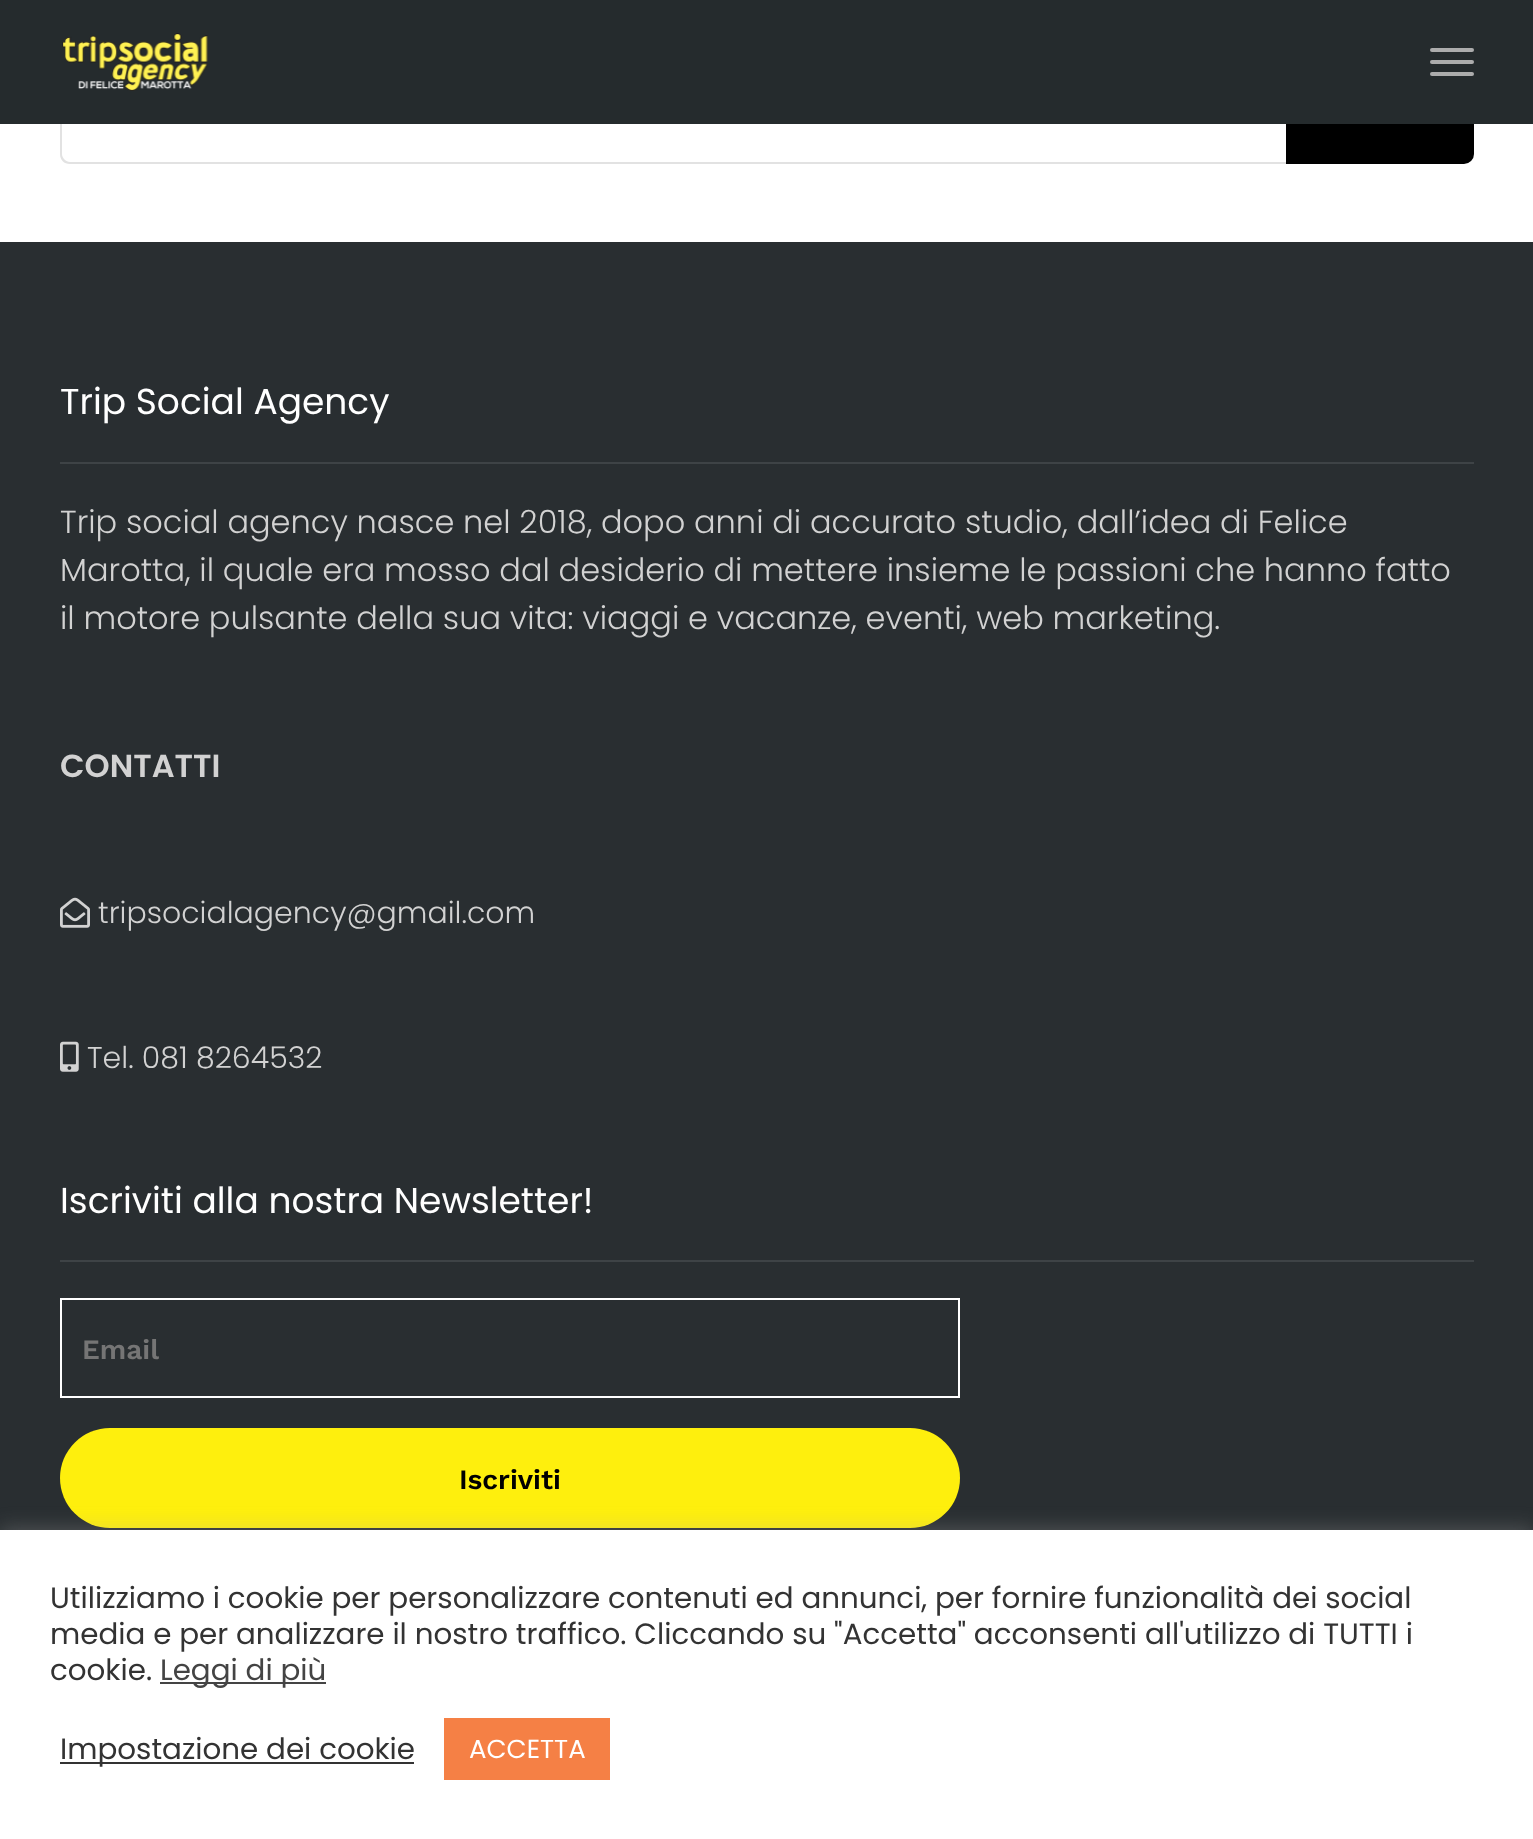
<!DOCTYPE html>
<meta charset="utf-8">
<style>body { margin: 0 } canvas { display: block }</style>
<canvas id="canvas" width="1533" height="1839"></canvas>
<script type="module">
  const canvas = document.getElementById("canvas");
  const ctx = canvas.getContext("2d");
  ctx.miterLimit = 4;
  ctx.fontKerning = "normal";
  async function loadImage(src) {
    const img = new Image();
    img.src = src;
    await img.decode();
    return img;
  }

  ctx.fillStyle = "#ffffff";
  ctx.fillRect(0, 0, 1533, 1839);
  ctx.fillStyle = "#e2e2e2";
  ctx.beginPath();
  ctx.moveTo(70, 64);
  ctx.lineTo(1286, 64);
  ctx.lineTo(1286, 164);
  ctx.lineTo(70, 164);
  ctx.bezierCurveTo(64, 164, 60, 160, 60, 154);
  ctx.lineTo(60, 74);
  ctx.bezierCurveTo(60, 68, 64, 64, 70, 64);
  ctx.closePath();
  ctx.moveTo(70, 66);
  ctx.lineTo(1286, 66);
  ctx.lineTo(1286, 162);
  ctx.lineTo(70, 162);
  ctx.bezierCurveTo(66, 162, 62, 158, 62, 154);
  ctx.lineTo(62, 74);
  ctx.bezierCurveTo(62, 70, 66, 66, 70, 66);
  ctx.closePath();
  ctx.fill("evenodd");
  ctx.fillStyle = "#000000";
  ctx.beginPath();
  ctx.roundRect(1286, 64, 188, 100, [0, 10, 10, 0]);
  ctx.fill();
  ctx.fillStyle = "#252b2d";
  ctx.fillRect(0, 0, 1533, 124);
  ctx.drawImage(await loadImage("img1.png"), 62, 33, 146, 58);
  ctx.fillStyle = "#acacac";
  ctx.beginPath();
  ctx.roundRect(1430, 48, 44, 4, 2);
  ctx.fill();
  ctx.beginPath();
  ctx.roundRect(1430, 60, 44, 4, 2);
  ctx.fill();
  ctx.beginPath();
  ctx.roundRect(1430, 72, 44, 4, 2);
  ctx.fill();
  ctx.fillStyle = "#292e31";
  ctx.fillRect(0, 242, 1533, 1288);
  ctx.fillStyle = "#3e4346";
  ctx.fillRect(60, 462, 1414, 2);
  ctx.font = "36px Poppins";
  ctx.fillStyle = "#ffffff";
  ctx.fillText("Trip Social Agency", 60, 414);
  ctx.font = "300 32px Poppins";
  ctx.fillStyle = "#d2d2d2";
  ctx.fillText("Trip social agency nasce nel 2018, dopo anni di accurato studio, dall’idea di Felice", 60, 533);
  ctx.fillText("Marotta, il quale era mosso dal desiderio di mettere insieme le passioni che hanno fatto", 60, 581);
  ctx.fillText("il motore pulsante della sua vita: viaggi e vacanze, eventi, web marketing.", 60, 629);
  ctx.font = "600 32px Poppins";
  ctx.fillText("CONTATTI", 60, 777);
  ctx.drawImage(await loadImage("img2.png"), 60, 897, 30, 31);
  ctx.font = "300 30px Poppins";
  ctx.fillText("tripsocialagency@gmail.com", 98, 923);
  ctx.drawImage(await loadImage("img3.png"), 60, 1041, 19, 31);
  ctx.fillText("Tel. 081 8264532", 87, 1068);
  ctx.fillStyle = "#3e4346";
  ctx.fillRect(60, 1260, 1414, 2);
  ctx.font = "36px Poppins";
  ctx.fillStyle = "#ffffff";
  ctx.fillText("Iscriviti alla nostra Newsletter!", 60, 1213);
  ctx.strokeStyle = "#ffffff";
  ctx.lineWidth = 2;
  ctx.strokeRect(61, 1299, 898, 98);
  ctx.font = "600 28px Work Sans";
  ctx.fillStyle = "#757575";
  ctx.fillText("Email", 82, 1359);
  ctx.fillStyle = "#feef0d";
  ctx.beginPath();
  ctx.roundRect(60, 1428, 900, 100, 50);
  ctx.fill();
  ctx.fillStyle = "#000000";
  ctx.fillText("Iscriviti", 459, 1489);
  ctx.fillStyle = "rgba(172, 171, 171, 0.3)";
  ctx.filter = "blur(10px)";
  ctx.beginPath();
  ctx.rect(0, 1528, 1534, 310);
  ctx.fill();
  ctx.filter = "none";
  ctx.fillStyle = "#ffffff";
  ctx.fillRect(0, 1530, 1533, 309);
  ctx.font = "29.35px Poppins";
  ctx.fillStyle = "#333333";
  ctx.fillText("Utilizziamo i cookie per personalizzare contenuti ed annunci, per fornire funzionalità dei social", 50, 1608);
  ctx.fillText("media e per analizzare il nostro traffico. Cliccando su \"Accetta\" acconsenti all'utilizzo di TUTTI i", 50, 1644);
  ctx.fillText("cookie.", 50, 1680);
  ctx.fillStyle = "#444444";
  ctx.fillRect(160, 1682, 166, 2);
  ctx.fillText("Leggi di più", 160, 1680);
  ctx.fillStyle = "#333333";
  ctx.fillRect(60, 1762, 354, 2);
  ctx.fillText("Impostazione dei cookie", 60, 1759);
  ctx.fillStyle = "#f58045";
  ctx.fillRect(444, 1718, 166, 62);
  ctx.font = "26px Poppins";
  ctx.fillStyle = "#ffffff";
  ctx.fillText("ACCETTA", 469, 1758);
</script>
